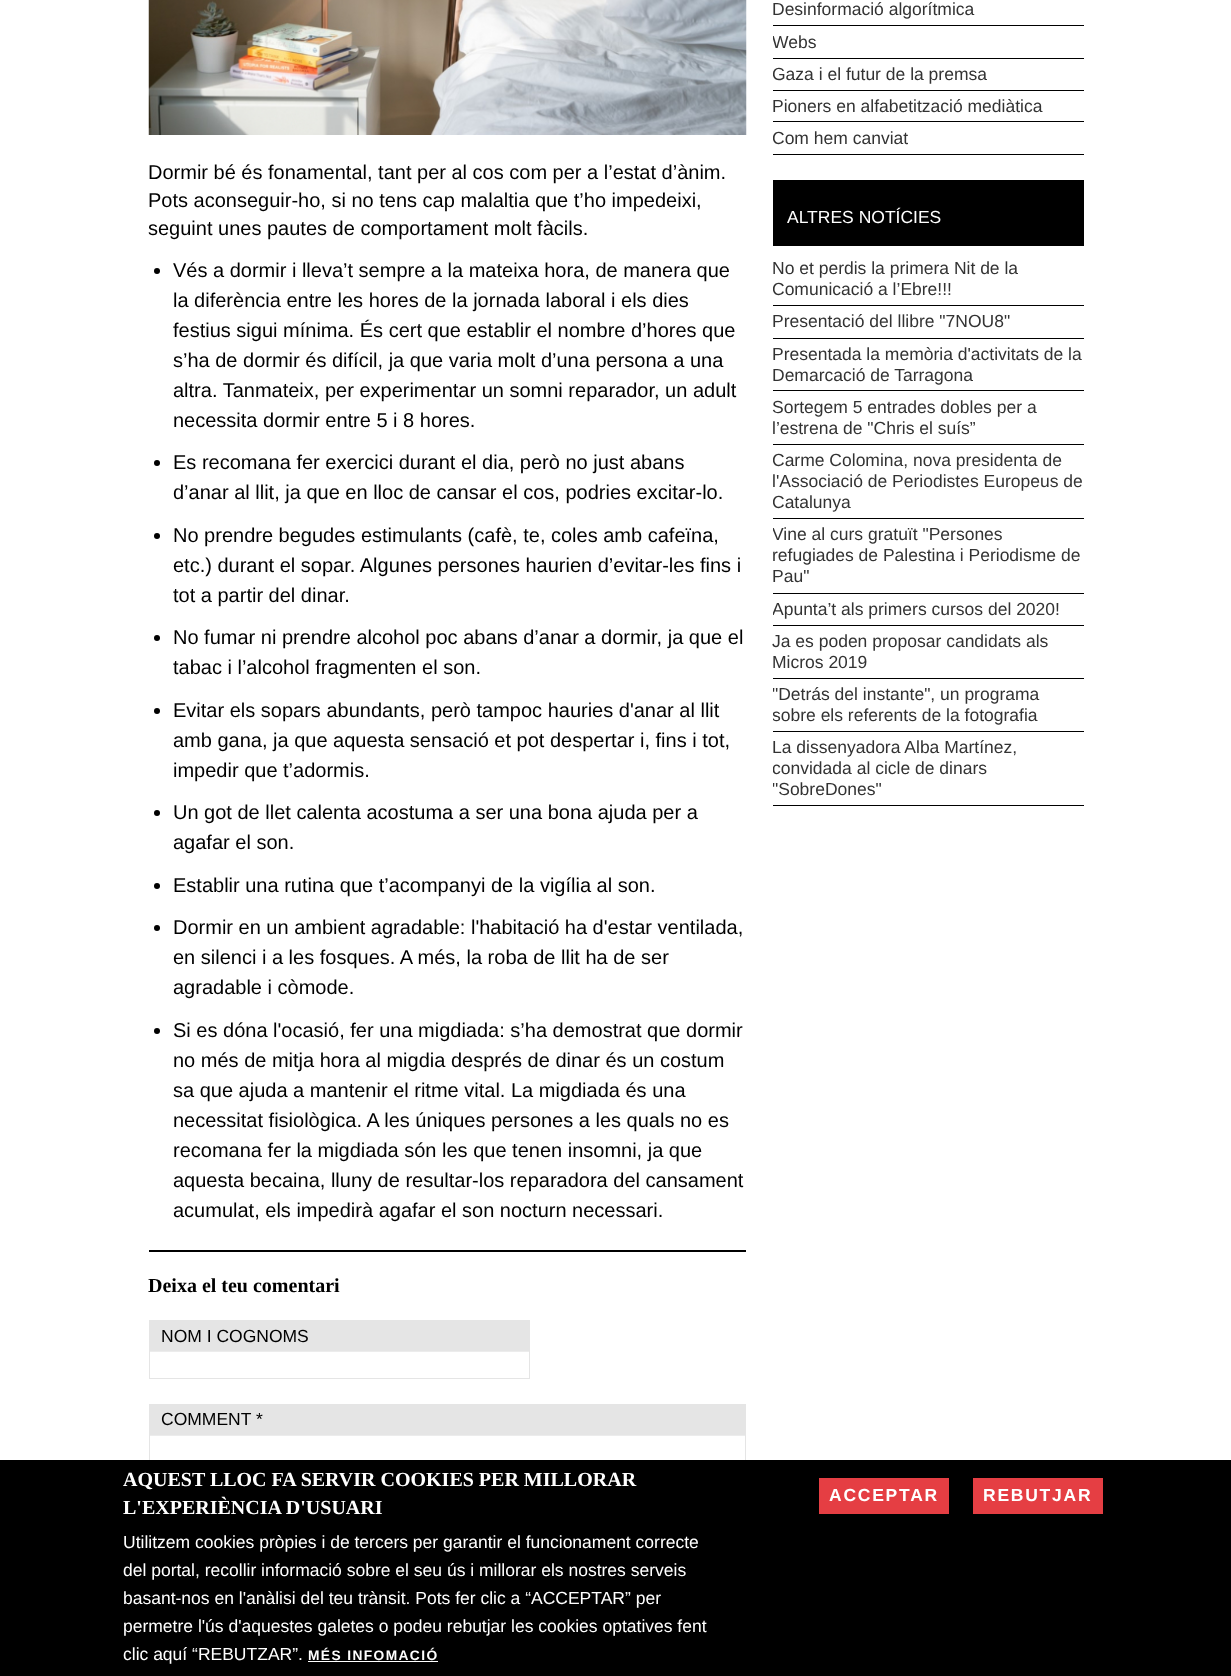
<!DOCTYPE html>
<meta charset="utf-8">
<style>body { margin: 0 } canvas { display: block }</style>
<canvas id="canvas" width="1231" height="1676"></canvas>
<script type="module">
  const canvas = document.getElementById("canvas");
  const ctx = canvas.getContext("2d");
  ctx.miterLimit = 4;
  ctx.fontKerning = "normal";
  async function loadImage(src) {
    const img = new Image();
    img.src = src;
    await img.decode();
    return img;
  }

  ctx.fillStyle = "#ffffff";
  ctx.fillRect(0, 0, 1231, 1676);
  ctx.drawImage(await loadImage("img1.png"), 148, 0, 599, 135);
  ctx.font = "20px Arimo";
  ctx.fillStyle = "#000000";
  ctx.fillText("Dormir bé és fonamental, tant per al cos com per a l’estat d’ànim.", 148, 179);
  ctx.fillText("Pots aconseguir-ho, si no tens cap malaltia que t’ho impedeixi,", 148, 207);
  ctx.fillText("seguint unes pautes de comportament molt fàcils.", 148, 235);
  ctx.beginPath();
  ctx.arc(157, 271, 3, 0, Math.PI * 2);
  ctx.fill();
  ctx.fillText("Vés a dormir i lleva’t sempre a la mateixa hora, de manera que", 173, 277);
  ctx.fillText("la diferència entre les hores de la jornada laboral i els dies", 173, 307);
  ctx.fillText("festius sigui mínima. És cert que establir el nombre d’hores que", 173, 337);
  ctx.fillText("s’ha de dormir és difícil, ja que varia molt d’una persona a una", 173, 367);
  ctx.fillText("altra. Tanmateix, per experimentar un somni reparador, un adult", 173, 397);
  ctx.fillText("necessita dormir entre 5 i 8 hores.", 173, 427);
  ctx.beginPath();
  ctx.arc(157, 463, 3, 0, Math.PI * 2);
  ctx.fill();
  ctx.fillText("Es recomana fer exercici durant el dia, però no just abans", 173, 469);
  ctx.fillText("d’anar al llit, ja que en lloc de cansar el cos, podries excitar-lo.", 173, 499);
  ctx.beginPath();
  ctx.arc(157, 536, 3, 0, Math.PI * 2);
  ctx.fill();
  ctx.fillText("No prendre begudes estimulants (cafè, te, coles amb cafeïna,", 173, 542);
  ctx.fillText("etc.) durant el sopar. Algunes persones haurien d’evitar-les fins i", 173, 572);
  ctx.fillText("tot a partir del dinar.", 173, 602);
  ctx.beginPath();
  ctx.arc(157, 638, 3, 0, Math.PI * 2);
  ctx.fill();
  ctx.fillText("No fumar ni prendre alcohol poc abans d’anar a dormir, ja que el", 173, 644);
  ctx.fillText("tabac i l’alcohol fragmenten el son.", 173, 674);
  ctx.beginPath();
  ctx.arc(157, 711, 3, 0, Math.PI * 2);
  ctx.fill();
  ctx.fillText("Evitar els sopars abundants, però tampoc hauries d'anar al llit", 173, 717);
  ctx.fillText("amb gana, ja que aquesta sensació et pot despertar i, fins i tot,", 173, 747);
  ctx.fillText("impedir que t’adormis.", 173, 777);
  ctx.beginPath();
  ctx.arc(157, 813, 3, 0, Math.PI * 2);
  ctx.fill();
  ctx.fillText("Un got de llet calenta acostuma a ser una bona ajuda per a", 173, 819);
  ctx.fillText("agafar el son.", 173, 849);
  ctx.beginPath();
  ctx.arc(157, 886, 3, 0, Math.PI * 2);
  ctx.fill();
  ctx.fillText("Establir una rutina que t’acompanyi de la vigília al son.", 173, 892);
  ctx.beginPath();
  ctx.arc(157, 928, 3, 0, Math.PI * 2);
  ctx.fill();
  ctx.fillText("Dormir en un ambient agradable: l'habitació ha d'estar ventilada,", 173, 934);
  ctx.fillText("en silenci i a les fosques. A més, la roba de llit ha de ser", 173, 964);
  ctx.fillText("agradable i còmode.", 173, 994);
  ctx.beginPath();
  ctx.arc(157, 1031, 3, 0, Math.PI * 2);
  ctx.fill();
  ctx.fillText("Si es dóna l'ocasió, fer una migdiada: s’ha demostrat que dormir", 173, 1037);
  ctx.fillText("no més de mitja hora al migdia després de dinar és un costum", 173, 1067);
  ctx.fillText("sa que ajuda a mantenir el ritme vital. La migdiada és una", 173, 1097);
  ctx.fillText("necessitat fisiològica. A les úniques persones a les quals no es", 173, 1127);
  ctx.fillText("recomana fer la migdiada són les que tenen insomni, ja que", 173, 1157);
  ctx.fillText("aquesta becaina, lluny de resultar-los reparadora del cansament", 173, 1187);
  ctx.fillText("acumulat, els impedirà agafar el son nocturn necessari.", 173, 1217);
  ctx.fillRect(149, 1250, 597, 2);
  ctx.font = "bold 20px Liberation Serif";
  ctx.fillText("Deixa el teu comentari", 148, 1292);
  ctx.fillStyle = "#e5e5e5";
  ctx.fillRect(149, 1320, 381, 30);
  ctx.font = "17.5px Arimo";
  ctx.fillStyle = "#000000";
  ctx.fillText("NOM I COGNOMS", 161, 1342);
  ctx.fillStyle = "#ececec";
  ctx.fillRect(150, 1351, 379, 1);
  ctx.strokeStyle = "#e5e5e5";
  ctx.strokeRect(149.5, 1350.5, 380, 28);
  ctx.fillStyle = "#e5e5e5";
  ctx.fillRect(149, 1404, 597, 30);
  ctx.fillStyle = "#000000";
  ctx.fillText("COMMENT *", 161, 1425);
  ctx.fillStyle = "#ececec";
  ctx.fillRect(150, 1435, 595, 1);
  ctx.strokeRect(149.5, 1434.5, 596, 141);
  ctx.fillStyle = "#000000";
  ctx.fillRect(773, 25, 311, 1);
  ctx.fillStyle = "#333333";
  ctx.fillText("Desinformació algorítmica", 772, 15);
  ctx.fillStyle = "#000000";
  ctx.fillRect(773, 58, 311, 1);
  ctx.save();
  ctx.beginPath();
  ctx.rect(773, 31, 311, 22);
  ctx.clip();
  ctx.fillStyle = "#333333";
  ctx.fillText("Webs", 772, 48);
  ctx.restore();
  ctx.fillRect(773, 90, 311, 1);
  ctx.save();
  ctx.beginPath();
  ctx.rect(773, 64, 311, 21);
  ctx.clip();
  ctx.fillStyle = "#333333";
  ctx.fillText("Gaza i el futur de la premsa", 772, 80);
  ctx.restore();
  ctx.fillRect(773, 121, 311, 1);
  ctx.fillStyle = "#333333";
  ctx.fillText("Pioners en alfabetització mediàtica", 772, 112);
  ctx.fillStyle = "#000000";
  ctx.fillRect(773, 154, 311, 1);
  ctx.save();
  ctx.beginPath();
  ctx.rect(773, 128, 311, 21);
  ctx.clip();
  ctx.fillStyle = "#333333";
  ctx.fillText("Com hem canviat", 772, 144);
  ctx.restore();
  ctx.fillRect(773, 180, 311, 66);
  ctx.fillStyle = "#ffffff";
  ctx.fillText("ALTRES NOTÍCIES", 787, 223);
  ctx.fillStyle = "#000000";
  ctx.fillRect(773, 305, 311, 1);
  ctx.fillStyle = "#333333";
  ctx.fillText("No et perdis la primera Nit de la", 772, 274);
  ctx.save();
  ctx.beginPath();
  ctx.rect(773, 258, 311, 42);
  ctx.clip();
  ctx.fillText("Comunicació a l’Ebre!!!", 772, 295);
  ctx.restore();
  ctx.fillStyle = "#000000";
  ctx.fillRect(773, 338, 311, 1);
  ctx.fillStyle = "#333333";
  ctx.fillText("Presentació del llibre \"7NOU8\"", 772, 327);
  ctx.fillStyle = "#000000";
  ctx.fillRect(773, 390, 311, 1);
  ctx.fillStyle = "#333333";
  ctx.fillText("Presentada la memòria d'activitats de la", 772, 360);
  ctx.fillText("Demarcació de Tarragona", 772, 381);
  ctx.fillStyle = "#000000";
  ctx.fillRect(773, 444, 311, 1);
  ctx.fillStyle = "#333333";
  ctx.fillText("Sortegem 5 entrades dobles per a", 772, 413);
  ctx.fillText("l’estrena de \"Chris el suís”", 772, 434);
  ctx.fillStyle = "#000000";
  ctx.fillRect(773, 518, 311, 1);
  ctx.save();
  ctx.beginPath();
  ctx.rect(773, 450, 311, 63);
  ctx.clip();
  ctx.fillStyle = "#333333";
  ctx.fillText("Carme Colomina, nova presidenta de", 772, 466);
  ctx.restore();
  ctx.fillStyle = "#333333";
  ctx.fillText("l'Associació de Periodistes Europeus de", 772, 487);
  ctx.save();
  ctx.beginPath();
  ctx.rect(773, 450, 311, 63);
  ctx.clip();
  ctx.fillText("Catalunya", 772, 508);
  ctx.restore();
  ctx.fillStyle = "#000000";
  ctx.fillRect(773, 593, 311, 1);
  ctx.save();
  ctx.beginPath();
  ctx.rect(773, 524, 311, 64);
  ctx.clip();
  ctx.fillStyle = "#333333";
  ctx.fillText("Vine al curs gratuït \"Persones", 772, 540);
  ctx.restore();
  ctx.fillStyle = "#333333";
  ctx.fillText("refugiades de Palestina i Periodisme de", 772, 561);
  ctx.fillText("Pau\"", 772, 582);
  ctx.fillStyle = "#000000";
  ctx.fillRect(773, 625, 311, 1);
  ctx.save();
  ctx.beginPath();
  ctx.rect(773, 599, 311, 21);
  ctx.clip();
  ctx.fillStyle = "#333333";
  ctx.fillText("Apunta’t als primers cursos del 2020!", 772, 615);
  ctx.restore();
  ctx.fillRect(773, 678, 311, 1);
  ctx.fillStyle = "#333333";
  ctx.fillText("Ja es poden proposar candidats als", 772, 647);
  ctx.fillText("Micros 2019", 772, 668);
  ctx.fillStyle = "#000000";
  ctx.fillRect(773, 731, 311, 1);
  ctx.save();
  ctx.beginPath();
  ctx.rect(773, 684, 311, 42);
  ctx.clip();
  ctx.fillStyle = "#333333";
  ctx.fillText("\"Detrás del instante\", un programa", 772, 700);
  ctx.fillText("sobre els referents de la fotografia", 772, 721);
  ctx.restore();
  ctx.fillRect(773, 805, 311, 1);
  ctx.fillStyle = "#333333";
  ctx.fillText("La dissenyadora Alba Martínez,", 772, 753);
  ctx.save();
  ctx.beginPath();
  ctx.rect(773, 738, 311, 62);
  ctx.clip();
  ctx.fillText("convidada al cicle de dinars", 772, 774);
  ctx.fillText("\"SobreDones\"", 772, 795);
  ctx.restore();
  ctx.fillStyle = "#000000";
  ctx.fillRect(0, 1460, 1231, 216);
  ctx.font = "bold 20px Liberation Serif";
  ctx.fillStyle = "#ffffff";
  ctx.fillText("AQUEST LLOC FA SERVIR COOKIES PER MILLORAR", 123, 1486);
  ctx.fillText("L'EXPERIÈNCIA D'USUARI", 123, 1514);
  ctx.font = "17.5px Arimo";
  ctx.fillText("Utilitzem cookies pròpies i de tercers per garantir el funcionament correcte", 123, 1548);
  ctx.fillText("del portal, recollir informació sobre el seu ús i millorar els nostres serveis", 123, 1576);
  ctx.fillText("basant-nos en l'anàlisi del teu trànsit. Pots fer clic a “ACCEPTAR” per", 123, 1604);
  ctx.fillText("permetre l'ús d'aquestes galetes o podeu rebutjar les cookies optatives fent", 123, 1632);
  ctx.fillText("clic aquí “REBUTZAR”.", 123, 1660);
  ctx.letterSpacing = "1.4px";
  ctx.font = "bold 13.75px Arimo";
  ctx.fillText("MÉS INFOMACIÓ", 308, 1660);
  ctx.fillRect(308, 1661, 130, 1);
  ctx.fillStyle = "#e53e43";
  ctx.fillRect(819, 1478, 130, 36);
  ctx.letterSpacing = "1.75px";
  ctx.font = "bold 17.5px Arimo";
  ctx.fillStyle = "#ffffff";
  ctx.fillText("ACCEPTAR", 829, 1501);
  ctx.fillStyle = "#e53e43";
  ctx.fillRect(973, 1478, 130, 36);
  ctx.font = "bold 17.5px Liberation Sans";
  ctx.fillStyle = "#ffffff";
  ctx.fillText("REBUTJAR", 983, 1501);
</script>
